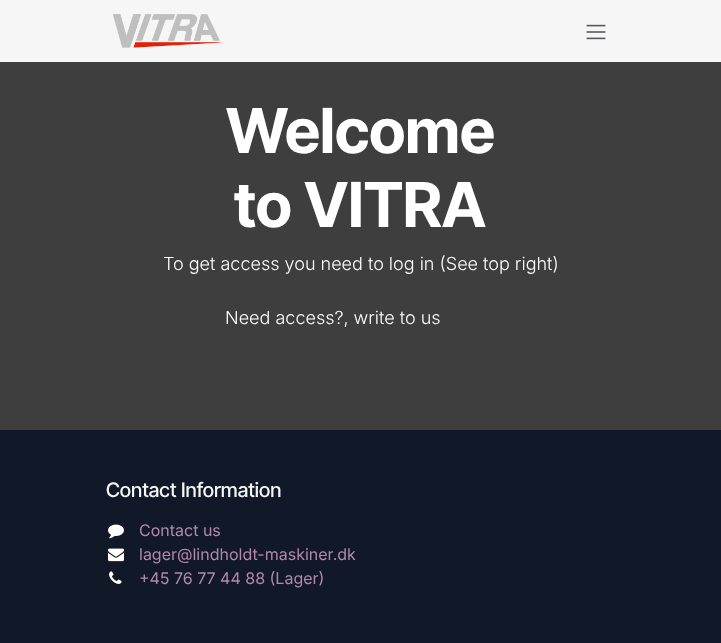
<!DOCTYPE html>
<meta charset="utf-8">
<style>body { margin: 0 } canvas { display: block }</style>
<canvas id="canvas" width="721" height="643"></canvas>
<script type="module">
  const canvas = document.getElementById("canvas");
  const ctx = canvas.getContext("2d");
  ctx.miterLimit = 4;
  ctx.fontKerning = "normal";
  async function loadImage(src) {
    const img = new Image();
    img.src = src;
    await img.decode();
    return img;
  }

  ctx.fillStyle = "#f6f6f6";
  ctx.fillRect(0, 0, 721, 643);
  ctx.drawImage(await loadImage("img1.png"), 113, 14, 108, 34);
  ctx.drawImage(await loadImage("img2.png"), 586, 24, 20, 16);
  ctx.fillStyle = "#3e3e3e";
  ctx.fillRect(0, 62, 721, 368);
  ctx.font = "bold 62px Inter Tight";
  ctx.fillStyle = "#ffffff";
  ctx.fillText("Welcome", 226, 153);
  ctx.fillText("to VITRA", 234, 227);
  ctx.font = "300 18px Inter";
  ctx.fillText("To get access you need to log in (See top right)", 163, 270);
  ctx.fillText("Need access?, write to us", 225, 324);
  ctx.fillStyle = "#111827";
  ctx.fillRect(0, 430, 721, 213);
  ctx.font = "500 20px Inter Tight";
  ctx.fillStyle = "#f6f6f6";
  ctx.fillText("Contact Information", 106, 497);
  ctx.drawImage(await loadImage("img3.png"), 108, 524, 16, 15);
  ctx.font = "16px Inter";
  ctx.fillStyle = "#b18aa7";
  ctx.fillText("Contact us", 139, 536);
  ctx.drawImage(await loadImage("img4.png"), 108, 548, 16, 14);
  ctx.fillText("lager@lindholdt-maskiner.dk", 139, 560);
  ctx.drawImage(await loadImage("img5.png"), 109, 571, 13, 13);
  ctx.fillText("+45 76 77 44 88 (Lager)", 139, 584);
</script>
